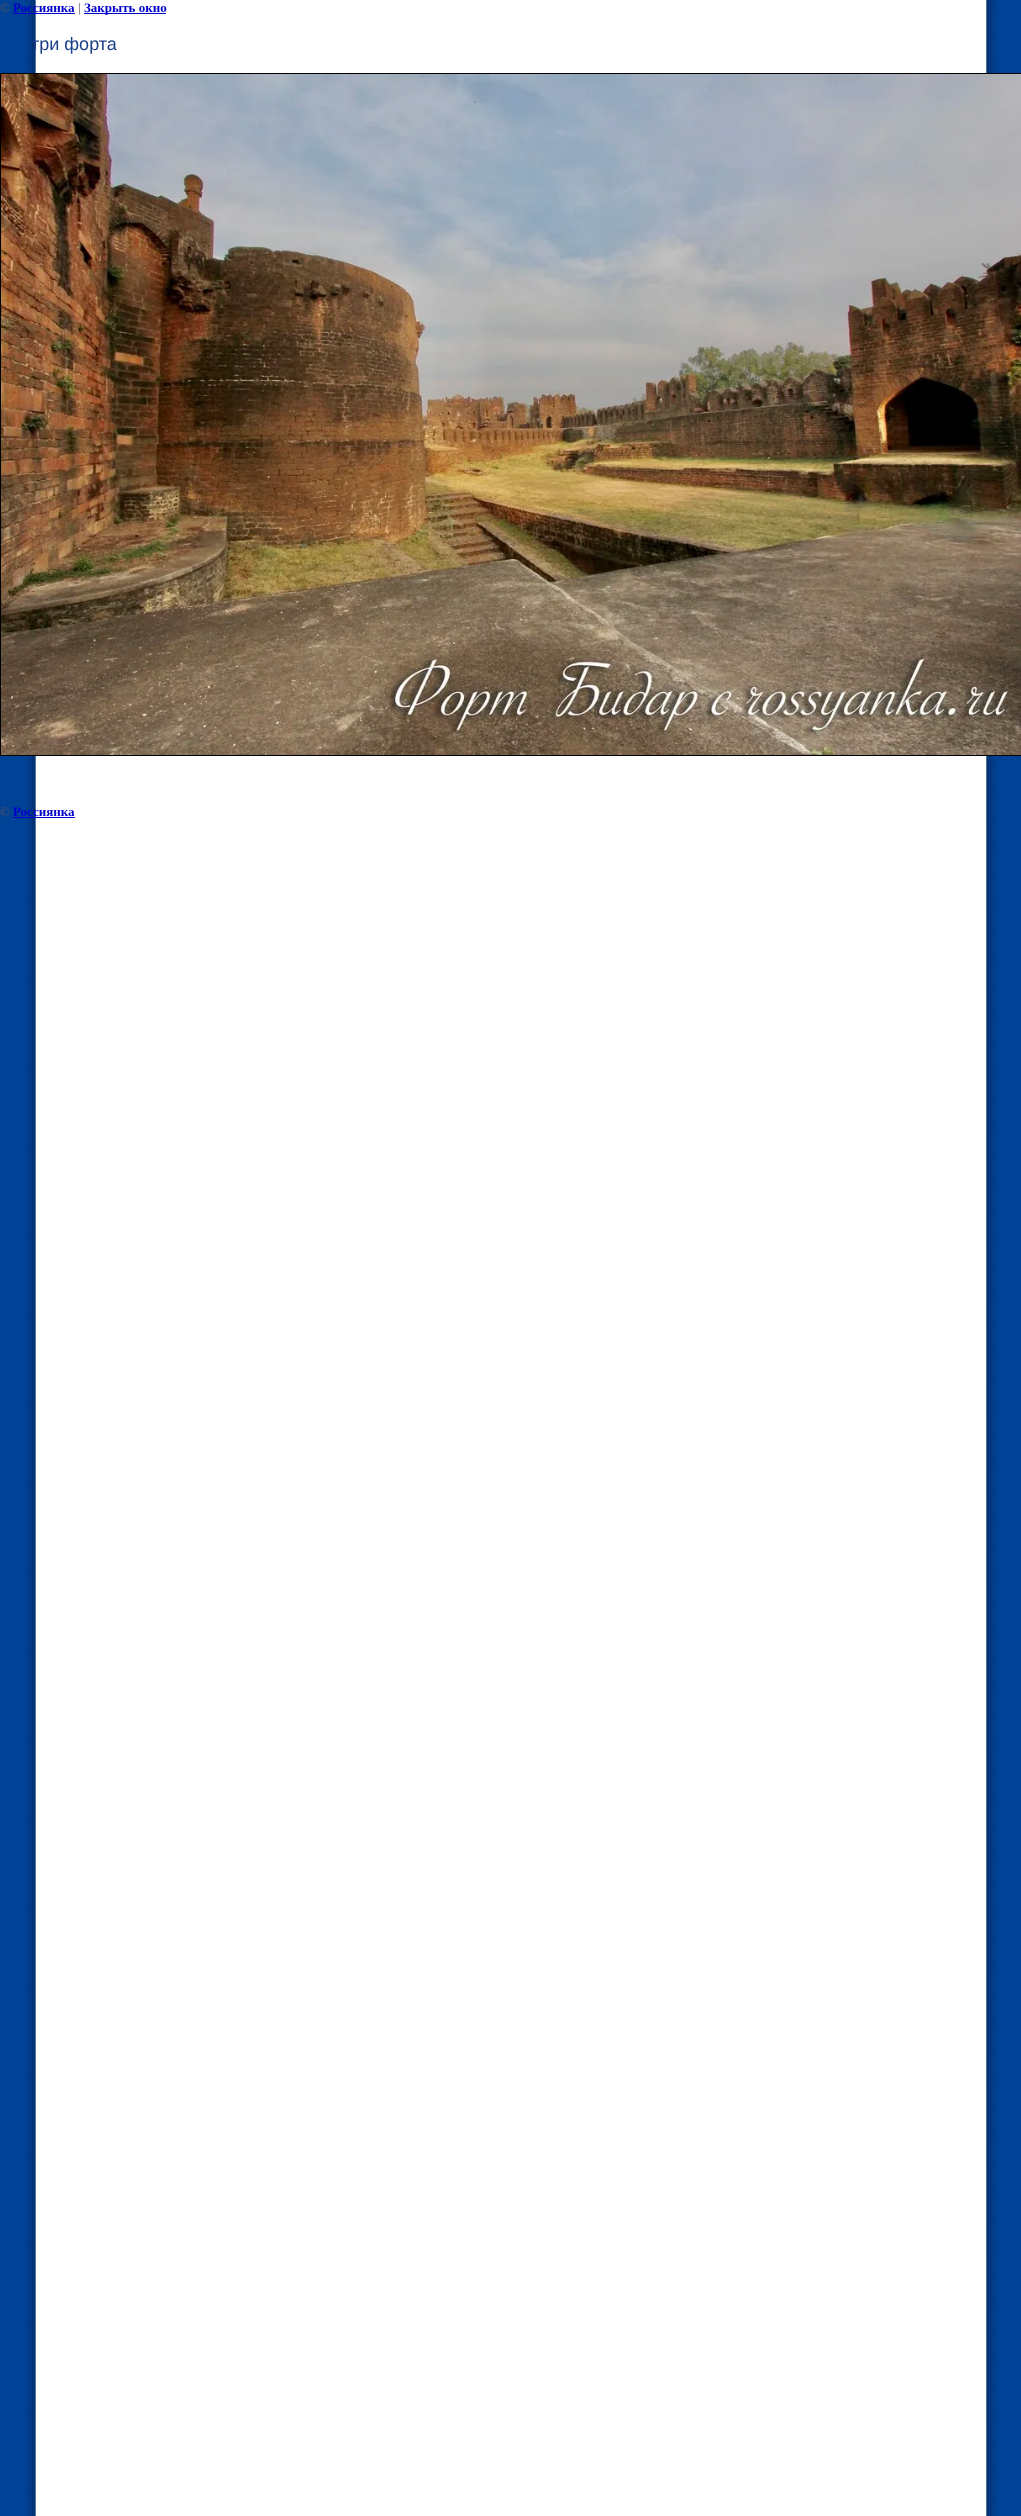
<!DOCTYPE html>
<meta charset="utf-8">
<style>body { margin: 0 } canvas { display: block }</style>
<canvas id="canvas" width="1021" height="2516"></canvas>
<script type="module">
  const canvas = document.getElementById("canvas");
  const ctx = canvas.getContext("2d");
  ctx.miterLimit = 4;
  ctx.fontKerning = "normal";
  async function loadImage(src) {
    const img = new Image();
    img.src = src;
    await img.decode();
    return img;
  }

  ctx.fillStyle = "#004296";
  ctx.fillRect(0, 0, 1021, 2516);
  ctx.drawImage(await loadImage("img1.png"), 25, 0, 973, 2516);
  ctx.font = "13px Liberation Serif";
  ctx.fillStyle = "#575757";
  ctx.fillText("©", 0, 12);
  ctx.font = "bold 13px Liberation Serif";
  ctx.fillStyle = "#0000cc";
  ctx.fillText("Россиянка", 13, 12);
  ctx.fillRect(13, 13, 62, 1);
  ctx.font = "13px Liberation Serif";
  ctx.fillStyle = "#575757";
  ctx.fillText("|", 78, 12);
  ctx.fillStyle = "#0000cc";
  ctx.fillRect(84, 13, 82, 1);
  ctx.font = "bold 13px Liberation Serif";
  ctx.fillText("Закрыть окно", 84, 12);
  ctx.font = "18px Liberation Sans";
  ctx.fillStyle = "#1a3e88";
  ctx.fillText("три форта", 31, 50);
  ctx.strokeStyle = "#000000";
  ctx.strokeRect(0.5, 73.5, 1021, 682);
  ctx.drawImage(await loadImage("img2.png"), 1, 74, 1020, 681);
  ctx.font = "13px Liberation Serif";
  ctx.fillStyle = "#575757";
  ctx.fillText("©", 0, 816);
  ctx.font = "bold 13px Liberation Serif";
  ctx.fillStyle = "#0000cc";
  ctx.fillText("Россиянка", 13, 816);
  ctx.fillRect(13, 817, 62, 1);
</script>
